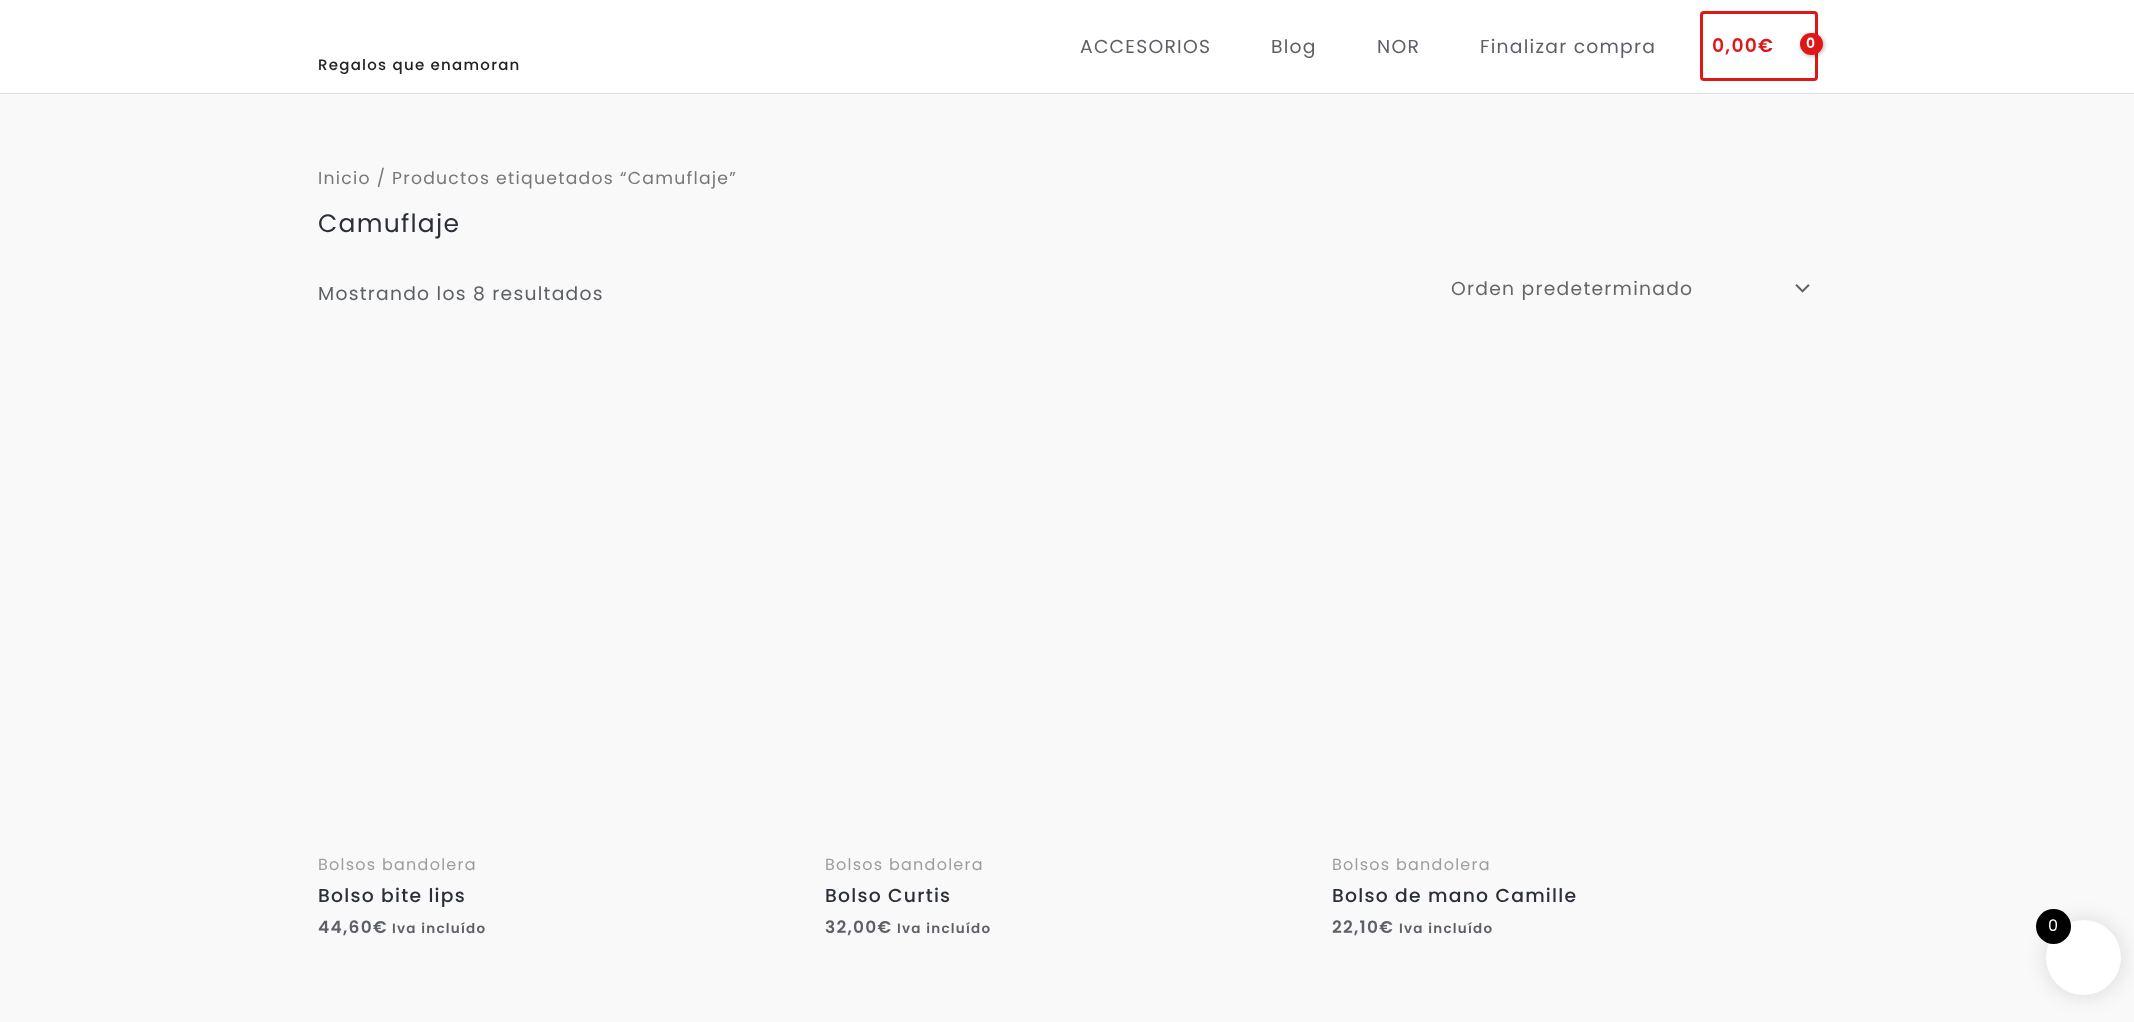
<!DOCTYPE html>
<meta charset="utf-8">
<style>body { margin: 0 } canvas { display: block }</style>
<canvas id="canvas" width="2134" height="1022"></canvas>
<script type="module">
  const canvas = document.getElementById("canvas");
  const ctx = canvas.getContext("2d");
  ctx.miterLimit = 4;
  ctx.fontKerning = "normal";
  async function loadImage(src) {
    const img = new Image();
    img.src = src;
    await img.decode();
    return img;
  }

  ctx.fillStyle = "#f9f9f9";
  ctx.fillRect(0, 0, 2134, 1022);
  ctx.fillStyle = "#ffffff";
  ctx.fillRect(0, 0, 2134, 93);
  ctx.fillStyle = "#dddddd";
  ctx.fillRect(0, 93, 2134, 1);
  ctx.letterSpacing = "1.25px";
  ctx.font = "18.75px Poppins";
  ctx.fillStyle = "#5d6167";
  ctx.fillText("ACCESORIOS", 1080, 53);
  ctx.fillText("Blog", 1271, 53);
  ctx.fillText("NOR", 1377, 53);
  ctx.fillText("Finalizar compra", 1480, 53);
  ctx.beginPath();
  ctx.roundRect(1701.5, 12.5, 115, 67, 2.5);
  ctx.strokeStyle = "#df1717";
  ctx.lineWidth = 3;
  ctx.stroke();
  ctx.font = "600 18.75px Poppins";
  ctx.fillStyle = "#df1717";
  ctx.fillText("0,00€", 1712, 52);
  ctx.fillStyle = "rgba(0, 0, 0, 0.3)";
  ctx.filter = "blur(2px)";
  ctx.beginPath();
  ctx.roundRect(1801, 34, 23, 22, 11);
  ctx.fill();
  ctx.filter = "none";
  ctx.fillStyle = "#df1717";
  ctx.beginPath();
  ctx.roundRect(1800, 33, 23, 22, 11);
  ctx.fill();
  ctx.letterSpacing = "-1px";
  ctx.font = "600 14px Poppins";
  ctx.fillStyle = "#ffffff";
  ctx.fillText("0", 1806, 48);
  ctx.letterSpacing = "1.25px";
  ctx.font = "500 15px Poppins";
  ctx.fillStyle = "#222222";
  ctx.fillText("Regalos que enamoran", 318, 70);
  ctx.font = "17.25px Poppins";
  ctx.fillStyle = "#777777";
  ctx.fillText("Inicio / Productos etiquetados “Camuflaje”", 318, 184);
  ctx.font = "25px Poppins";
  ctx.fillStyle = "#2b2f38";
  ctx.fillText("Camuflaje", 318, 232);
  ctx.font = "18.75px Poppins";
  ctx.fillStyle = "#5d6167";
  ctx.fillText("Mostrando los 8 resultados", 318, 300);
  ctx.drawImage(await loadImage("img1.png"), 1795, 284, 15, 9);
  ctx.fillStyle = "#666666";
  ctx.fillText("Orden predeterminado", 1451, 295);
  ctx.font = "16px Poppins";
  ctx.fillStyle = "#9b9ea1";
  ctx.fillText("Bolsos bandolera", 318, 870);
  ctx.font = "500 18.75px Poppins";
  ctx.fillStyle = "#2b2f38";
  ctx.fillText("Bolso bite lips", 318, 902);
  ctx.font = "600 17px Poppins";
  ctx.fillStyle = "#5d6167";
  ctx.fillText("44,60€", 318, 933);
  ctx.font = "600 13.5px Poppins";
  ctx.fillText("Iva incluído", 392, 933);
  ctx.font = "16px Poppins";
  ctx.fillStyle = "#9b9ea1";
  ctx.fillText("Bolsos bandolera", 825, 870);
  ctx.font = "500 18.75px Poppins";
  ctx.fillStyle = "#2b2f38";
  ctx.fillText("Bolso Curtis", 825, 902);
  ctx.font = "600 17px Poppins";
  ctx.fillStyle = "#5d6167";
  ctx.fillText("32,00€", 825, 933);
  ctx.font = "600 13.5px Poppins";
  ctx.fillText("Iva incluído", 897, 933);
  ctx.font = "16px Poppins";
  ctx.fillStyle = "#9b9ea1";
  ctx.fillText("Bolsos bandolera", 1332, 870);
  ctx.font = "500 18.75px Poppins";
  ctx.fillStyle = "#2b2f38";
  ctx.fillText("Bolso de mano Camille", 1332, 902);
  ctx.font = "600 17px Poppins";
  ctx.fillStyle = "#5d6167";
  ctx.fillText("22,10€", 1332, 933);
  ctx.font = "600 13.5px Poppins";
  ctx.fillText("Iva incluído", 1399, 933);
  ctx.fillStyle = "rgba(0, 0, 0, 0.1)";
  ctx.filter = "blur(9.5px)";
  ctx.beginPath();
  ctx.roundRect(2044, 918, 80, 80, 40);
  ctx.fill();
  ctx.filter = "none";
  ctx.fillStyle = "#ffffff";
  ctx.beginPath();
  ctx.arc(2083.5, 957.5, 37.5, 0, Math.PI * 2);
  ctx.fill();
  ctx.fillStyle = "#000000";
  ctx.beginPath();
  ctx.arc(2053.5, 926.5, 17.5, 0, Math.PI * 2);
  ctx.fill();
  ctx.font = "16px Poppins";
  ctx.fillStyle = "#ffffff";
  ctx.fillText("0", 2048, 931);
</script>
